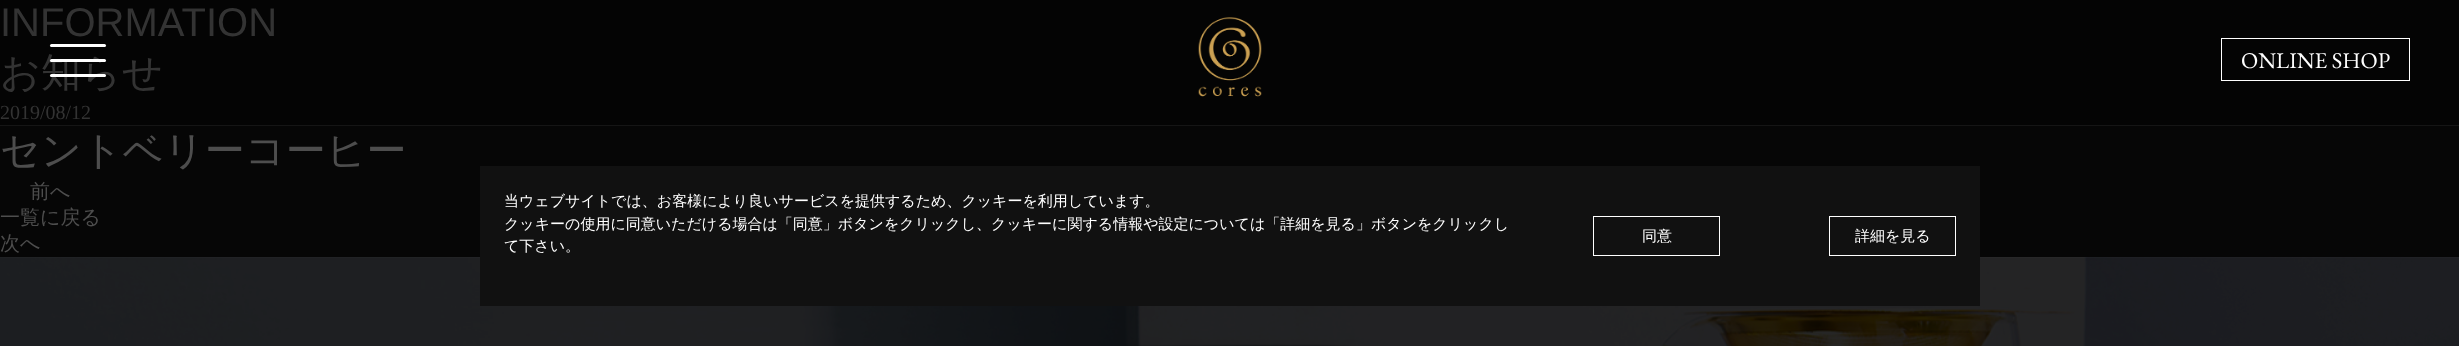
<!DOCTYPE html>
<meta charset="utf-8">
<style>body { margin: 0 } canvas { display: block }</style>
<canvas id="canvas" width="2459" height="346"></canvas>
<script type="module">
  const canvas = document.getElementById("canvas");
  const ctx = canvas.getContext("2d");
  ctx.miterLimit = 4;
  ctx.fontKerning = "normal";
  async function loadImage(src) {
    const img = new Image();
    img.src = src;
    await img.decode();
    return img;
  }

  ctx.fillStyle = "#151515";
  ctx.fillRect(0, 0, 2459, 346);
  ctx.fillStyle = "#060606";
  ctx.fillRect(0, 126, 2459, 132);
  ctx.fillStyle = "#040404";
  ctx.fillRect(0, 0, 2459, 125);
  ctx.font = "40px Liberation Sans";
  ctx.fillStyle = "#333333";
  ctx.fillText("INFORMATION", 0, 36);
  ctx.font = "500 40px WenQuanYi Zen Hei";
  ctx.fillText("お知らせ", 0, 86);
  ctx.font = "20px Liberation Serif";
  ctx.fillText("2019/08/12", 0, 119);
  ctx.font = "500 40px WenQuanYi Zen Hei";
  ctx.fillStyle = "#4d4d4d";
  ctx.fillText("セントベリーコーヒー", 0, 164);
  ctx.font = "500 20px WenQuanYi Zen Hei";
  ctx.fillText("前へ", 30, 198);
  ctx.fillText("一覧に戻る", 0, 224);
  ctx.fillText("次へ", 0, 250);
  ctx.fillStyle = "#ffffff";
  ctx.beginPath();
  ctx.roundRect(50, 44, 56, 3, 1.5);
  ctx.fill();
  ctx.beginPath();
  ctx.roundRect(50, 59, 56, 3, 1.5);
  ctx.fill();
  ctx.beginPath();
  ctx.roundRect(50, 74, 56, 3, 1.5);
  ctx.fill();
  ctx.drawImage(await loadImage("img1.png"), 1198, 17, 64, 80);
  ctx.strokeStyle = "#ffffff";
  ctx.strokeRect(2221.5, 38.5, 188, 42);
  ctx.font = "22.5px EB Garamond";
  ctx.fillText("ONLINE SHOP", 2241, 68);
  ctx.drawImage(await loadImage("img2.png"), 0, 257, 2459, 89);
  ctx.fillStyle = "#111111";
  ctx.fillRect(480, 166, 1500, 140);
  ctx.font = "500 15px WenQuanYi Zen Hei";
  ctx.fillStyle = "#ffffff";
  ctx.fillText("当ウェブサイトでは、お客様により良いサービスを提供するため、クッキーを利用しています。", 504, 206);
  ctx.fillText("クッキーの使用に同意いただける場合は「同意」ボタンをクリックし、クッキーに関する情報や設定については「詳細を見る」ボタンをクリックし", 504, 229);
  ctx.fillText("て下さい。", 504, 251);
  ctx.strokeRect(1593.5, 216.5, 126, 39);
  ctx.fillText("同意", 1642, 241);
  ctx.strokeRect(1829.5, 216.5, 126, 39);
  ctx.fillText("詳細を見る", 1855, 241);
</script>
